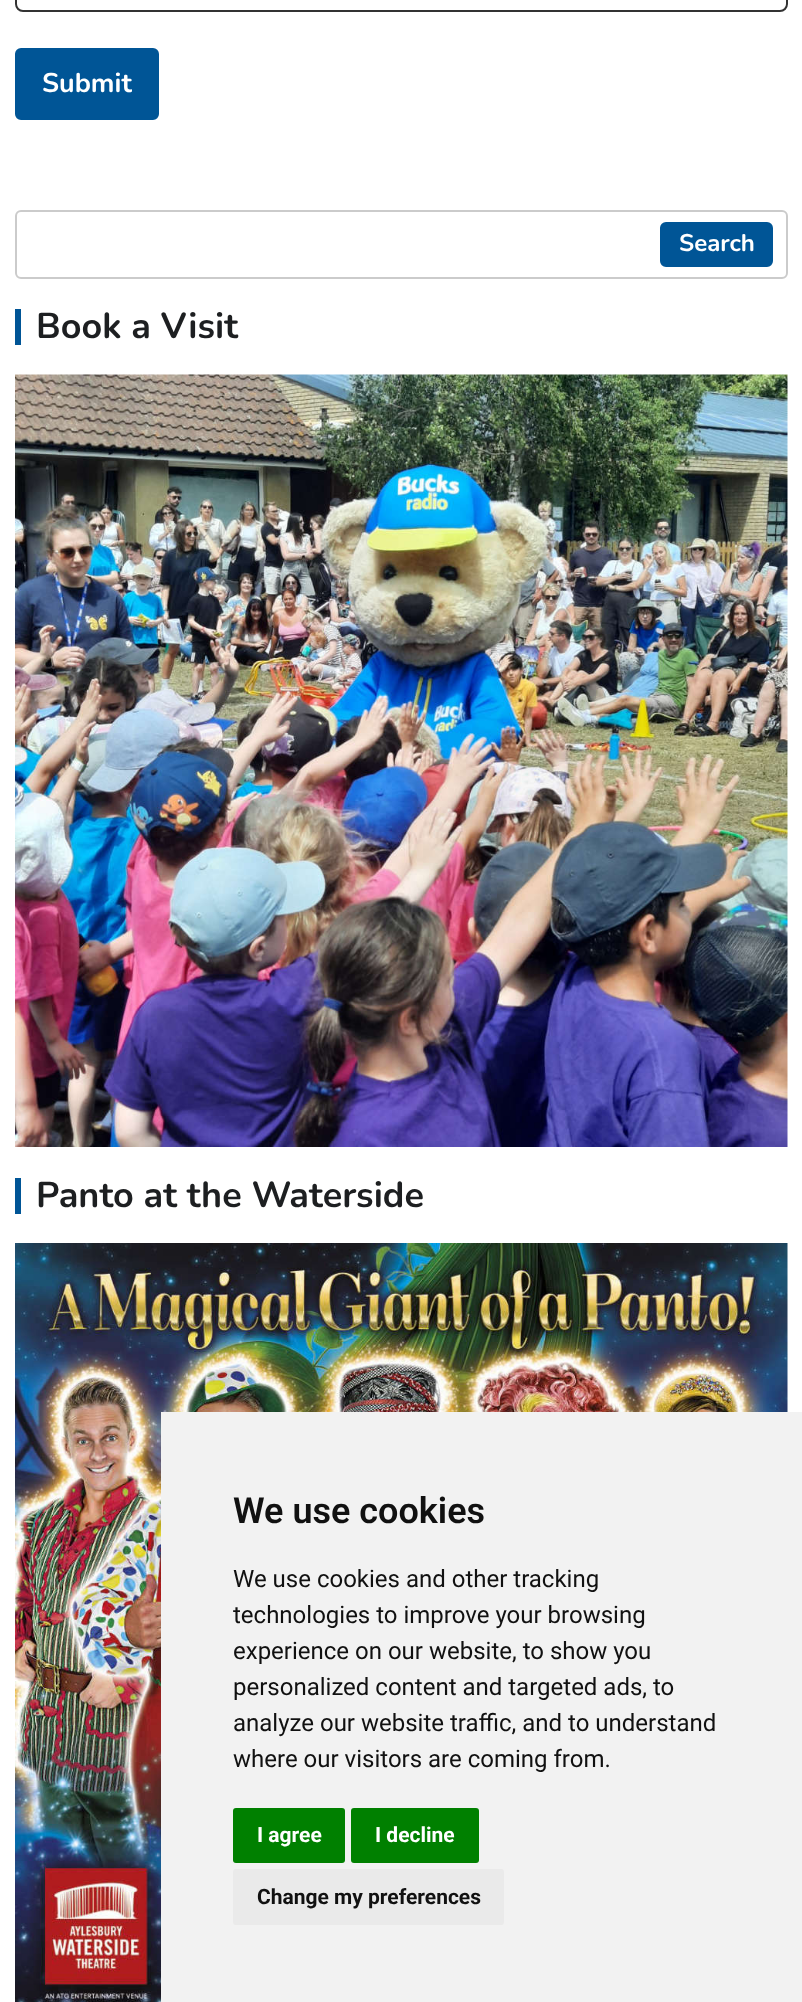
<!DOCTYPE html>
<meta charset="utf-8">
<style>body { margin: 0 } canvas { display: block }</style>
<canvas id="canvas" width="802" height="2002"></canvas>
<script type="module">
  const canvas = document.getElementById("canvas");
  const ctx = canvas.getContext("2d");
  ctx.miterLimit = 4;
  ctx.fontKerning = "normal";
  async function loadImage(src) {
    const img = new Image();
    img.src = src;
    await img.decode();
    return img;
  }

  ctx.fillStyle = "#ffffff";
  ctx.fillRect(0, 0, 802, 2002);
  ctx.beginPath();
  ctx.roundRect(16, -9, 771, 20, 7);
  ctx.strokeStyle = "#333333";
  ctx.lineWidth = 2;
  ctx.stroke();
  ctx.fillStyle = "#005596";
  ctx.beginPath();
  ctx.roundRect(16.5, 49.5, 141, 69, 4.5);
  ctx.fill();
  ctx.strokeStyle = "#005596";
  ctx.lineWidth = 3;
  ctx.stroke();
  ctx.font = "bold 27px Nunito";
  ctx.fillStyle = "#ffffff";
  ctx.fillText("Submit", 42, 92);
  ctx.beginPath();
  ctx.roundRect(16, 211, 771, 67, 5);
  ctx.strokeStyle = "#cbcbcb";
  ctx.lineWidth = 2;
  ctx.stroke();
  ctx.fillStyle = "#005596";
  ctx.beginPath();
  ctx.roundRect(661.5, 223.5, 110, 42, 4.5);
  ctx.fill();
  ctx.strokeStyle = "#005596";
  ctx.lineWidth = 3;
  ctx.stroke();
  ctx.font = "bold 24px Nunito";
  ctx.fillStyle = "#ffffff";
  ctx.fillText("Search", 679, 251);
  ctx.fillStyle = "#005596";
  ctx.fillRect(15, 309, 6, 36);
  ctx.font = "bold 36px Nunito";
  ctx.fillStyle = "#1d1f21";
  ctx.fillText("Book a Visit", 36, 338);
  ctx.drawImage(await loadImage("img1.png"), 15, 374, 773, 773);
  ctx.fillStyle = "#005596";
  ctx.fillRect(15, 1178, 6, 36);
  ctx.fillStyle = "#1d1f21";
  ctx.fillText("Panto at the Waterside", 36, 1207);
  ctx.drawImage(await loadImage("img2.png"), 15, 1243, 773, 759);
  ctx.fillStyle = "#f2f2f2";
  ctx.fillRect(161, 1412, 641, 590);
  ctx.font = "600 36px Roboto";
  ctx.fillStyle = "#111111";
  ctx.fillText("We use cookies", 233, 1523);
  ctx.font = "24px Roboto";
  ctx.fillText("We use cookies and other tracking", 233, 1587);
  ctx.fillText("technologies to improve your browsing", 233, 1623);
  ctx.fillText("experience on our website, to show you", 233, 1659);
  ctx.fillText("personalized content and targeted ads, to", 233, 1695);
  ctx.fillText("analyze our website traffic, and to understand", 233, 1731);
  ctx.fillText("where our visitors are coming from.", 233, 1767);
  ctx.fillStyle = "#008000";
  ctx.beginPath();
  ctx.roundRect(233, 1808, 112, 55, 3);
  ctx.fill();
  ctx.font = "bold 21px Roboto";
  ctx.fillStyle = "#ffffff";
  ctx.fillText("I agree", 257, 1842);
  ctx.fillStyle = "#008000";
  ctx.beginPath();
  ctx.roundRect(351, 1808, 128, 55, 3);
  ctx.fill();
  ctx.fillStyle = "#ffffff";
  ctx.fillText("I decline", 375, 1842);
  ctx.fillStyle = "#eaeaea";
  ctx.beginPath();
  ctx.roundRect(233, 1869, 271, 56, 3);
  ctx.fill();
  ctx.fillStyle = "#111111";
  ctx.fillText("Change my preferences", 257, 1904);
</script>
